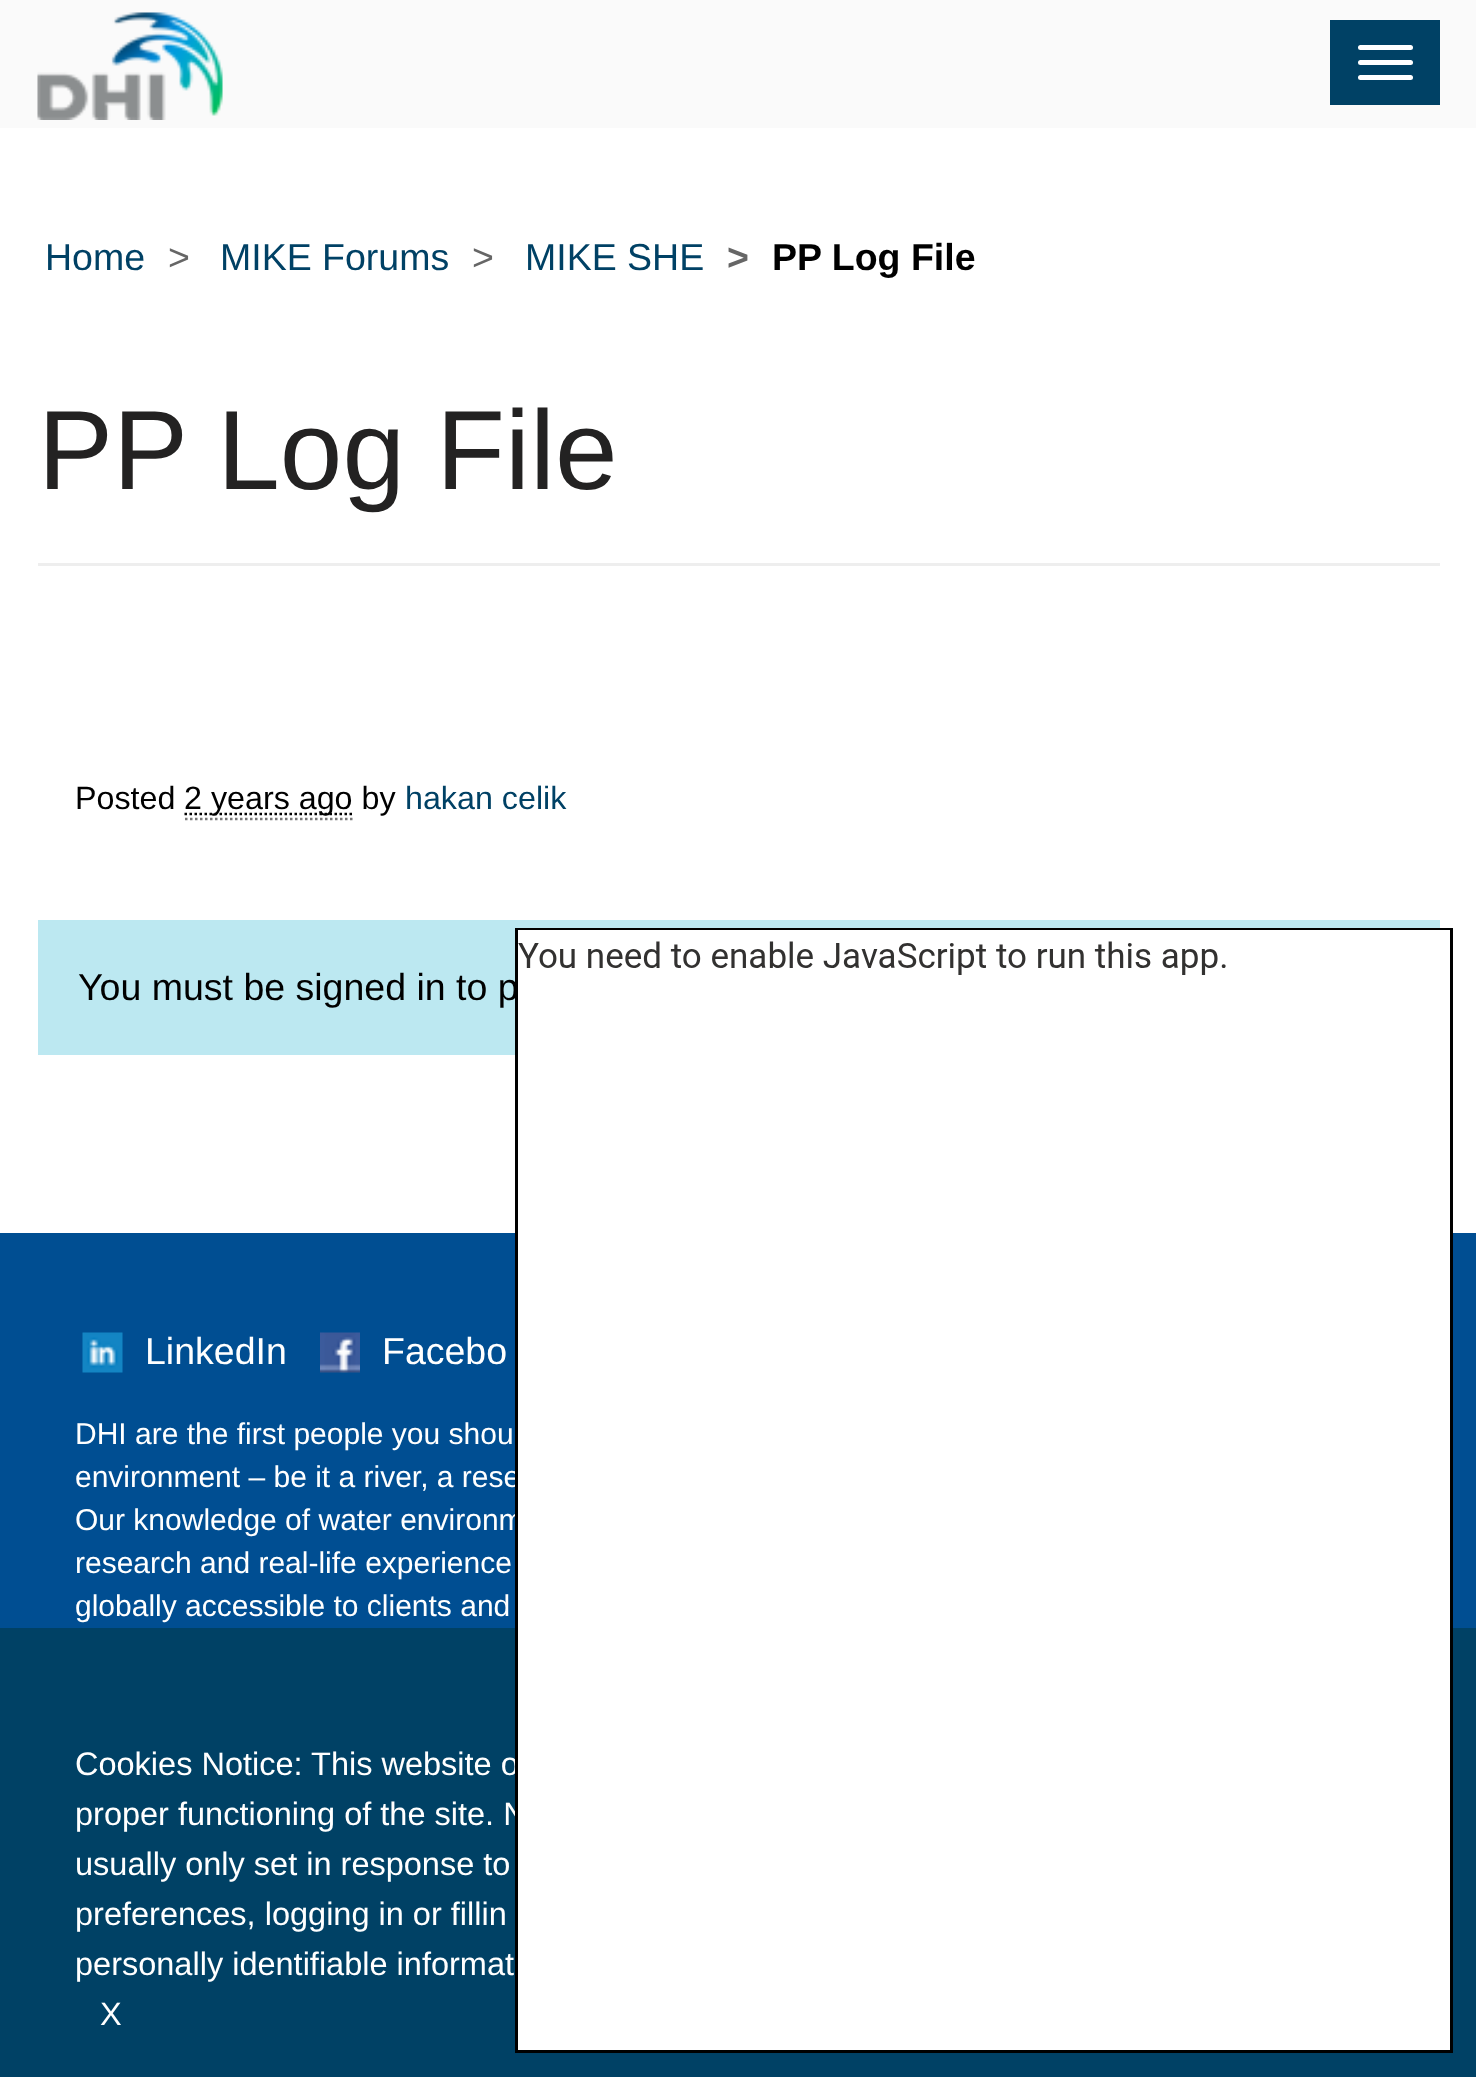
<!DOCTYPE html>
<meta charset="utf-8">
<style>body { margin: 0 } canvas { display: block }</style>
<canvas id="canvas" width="1476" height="2077"></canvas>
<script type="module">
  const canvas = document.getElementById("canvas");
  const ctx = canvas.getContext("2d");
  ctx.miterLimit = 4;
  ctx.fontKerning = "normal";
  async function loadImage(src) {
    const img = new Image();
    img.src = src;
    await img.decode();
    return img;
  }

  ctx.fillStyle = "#ffffff";
  ctx.fillRect(0, 0, 1476, 2077);
  ctx.fillStyle = "#fafafa";
  ctx.fillRect(0, 0, 1476, 128);
  ctx.drawImage(await loadImage("img1.png"), 37, 12, 186, 108);
  ctx.fillStyle = "#004165";
  ctx.fillRect(1330, 20, 110, 85);
  ctx.fillStyle = "#ffffff";
  ctx.beginPath();
  ctx.roundRect(1358, 45, 55, 5, 2.5);
  ctx.fill();
  ctx.beginPath();
  ctx.roundRect(1358, 60, 55, 5, 2.5);
  ctx.fill();
  ctx.beginPath();
  ctx.roundRect(1358, 75, 55, 5, 2.5);
  ctx.fill();
  ctx.font = "37.5px Liberation Sans";
  ctx.fillStyle = "#004165";
  ctx.fillText("Home", 45, 270);
  ctx.fillStyle = "#666666";
  ctx.fillText(">", 168, 270);
  ctx.fillStyle = "#004165";
  ctx.fillText("MIKE Forums", 220, 270);
  ctx.fillStyle = "#666666";
  ctx.fillText(">", 472, 270);
  ctx.fillStyle = "#004165";
  ctx.fillText("MIKE SHE", 525, 270);
  ctx.font = "bold 37.5px Liberation Sans";
  ctx.fillStyle = "#666666";
  ctx.fillText(">", 727, 270);
  ctx.fillStyle = "#000000";
  ctx.fillText("PP Log File", 772, 270);
  ctx.fillStyle = "#eeeeee";
  ctx.fillRect(38, 563, 1402, 3);
  ctx.font = "112.5px Liberation Sans";
  ctx.fillStyle = "#232222";
  ctx.fillText("PP Log File", 38, 489);
  ctx.font = "32.25px Liberation Sans";
  ctx.fillStyle = "#000000";
  ctx.fillText("Posted", 75, 809);
  ctx.beginPath();
  ctx.moveTo(184.5, 814);
  ctx.lineTo(352.5, 814);
  ctx.strokeStyle = "#000000";
  ctx.lineWidth = 2.5;
  ctx.setLineDash([2.5, 2.5]);
  ctx.stroke();
  ctx.fillText("2 years ago by", 184, 809);
  ctx.beginPath();
  ctx.moveTo(185, 819);
  ctx.lineTo(352.5, 819);
  ctx.strokeStyle = "#777777";
  ctx.stroke();
  ctx.fillStyle = "#004165";
  ctx.fillText("hakan celik", 405, 809);
  ctx.fillStyle = "#bce8f1";
  ctx.fillRect(38, 920, 1402, 135);
  ctx.font = "37.5px Liberation Sans";
  ctx.fillStyle = "#000000";
  ctx.fillText("You must be signed in to p", 78, 1000);
  ctx.fillStyle = "#004e92";
  ctx.fillRect(0, 1233, 1476, 395);
  ctx.drawImage(await loadImage("img2.png"), 82, 1332, 41, 41);
  ctx.fillStyle = "#ffffff";
  ctx.fillText("LinkedIn", 145, 1364);
  ctx.drawImage(await loadImage("img3.png"), 320, 1332, 40, 41);
  ctx.fillText("Facebo", 382, 1364);
  ctx.font = "30px Liberation Sans";
  ctx.fillText("DHI are the first people you shou", 75, 1444);
  ctx.fillText("environment – be it a river, a rese", 75, 1487);
  ctx.fillText("Our knowledge of water environm", 75, 1530);
  ctx.fillText("research and real-life experience", 75, 1573);
  ctx.fillText("globally accessible to clients and", 75, 1616);
  ctx.fillStyle = "#004165";
  ctx.fillRect(0, 1628, 1476, 449);
  ctx.font = "32.5px Liberation Sans";
  ctx.fillStyle = "#ffffff";
  ctx.fillText("Cookies Notice: This website o", 75, 1775);
  ctx.fillText("proper functioning of the site. N", 75, 1825);
  ctx.fillText("usually only set in response to", 75, 1875);
  ctx.fillText("preferences, logging in or fillin", 75, 1925);
  ctx.fillText("personally identifiable informat", 75, 1975);
  ctx.fillText("X", 100, 2025);
  ctx.fillRect(518, 975, 932, 1075);
  ctx.strokeStyle = "#000000";
  ctx.lineWidth = 3;
  ctx.setLineDash([]);
  ctx.strokeRect(516.5, 929.5, 935, 1122);
  ctx.drawImage(await loadImage("img4.png"), 518, 930, 932, 45);
</script>
